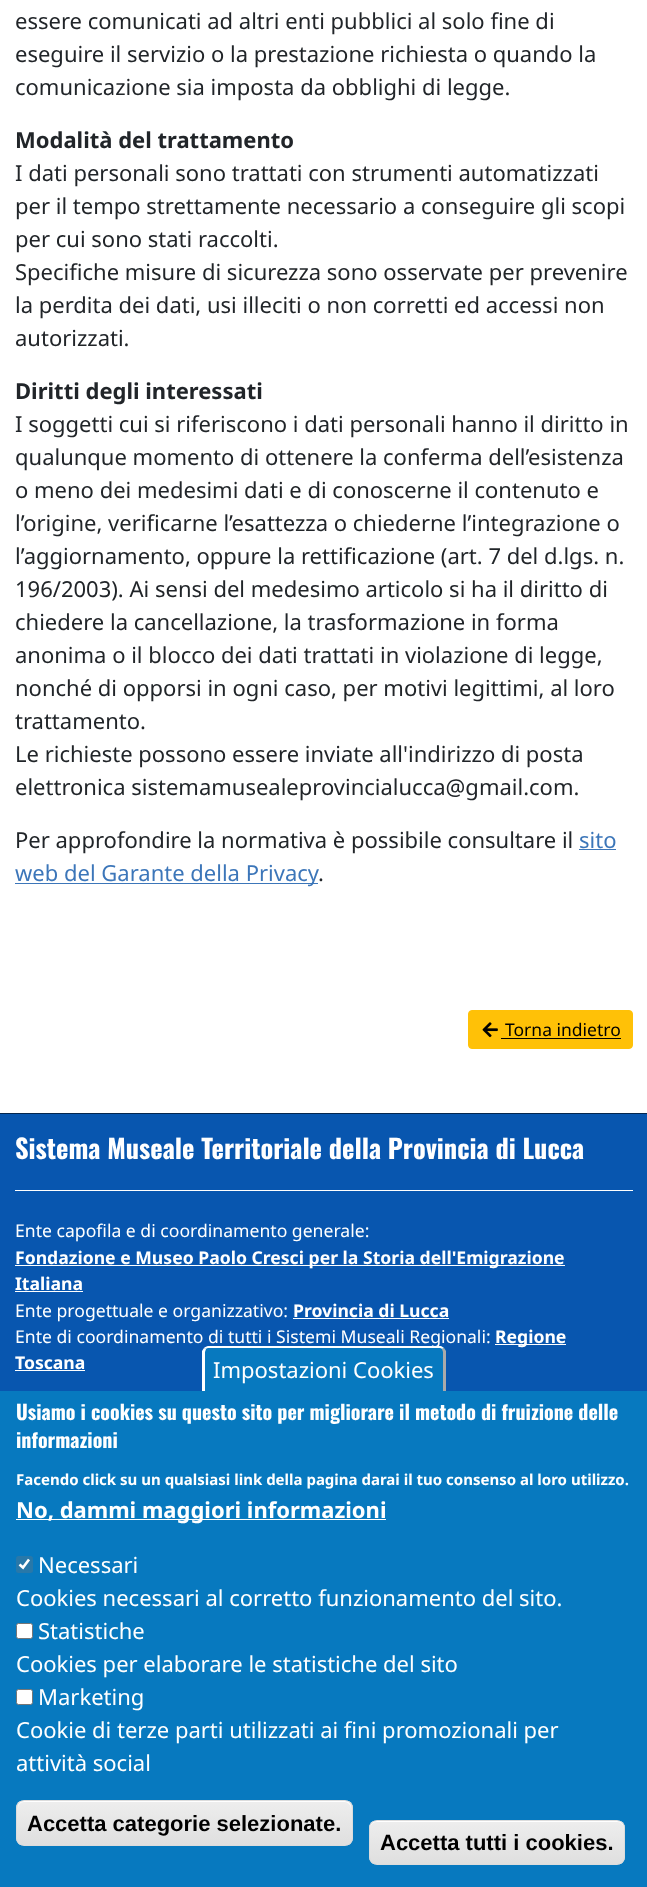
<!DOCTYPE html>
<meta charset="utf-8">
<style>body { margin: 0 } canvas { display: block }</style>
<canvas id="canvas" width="647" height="1887"></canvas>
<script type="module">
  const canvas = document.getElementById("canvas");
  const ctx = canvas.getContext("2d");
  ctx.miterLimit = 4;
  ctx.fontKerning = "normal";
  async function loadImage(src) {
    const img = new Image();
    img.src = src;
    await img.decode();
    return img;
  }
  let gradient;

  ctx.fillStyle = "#ffffff";
  ctx.fillRect(0, 0, 647, 1887);
  ctx.font = "22px Noto Sans";
  ctx.fillStyle = "#212529";
  ctx.fillText("essere comunicati ad altri enti pubblici al solo fine di", 15, 29);
  ctx.fillText("eseguire il servizio o la prestazione richiesta o quando la", 15, 62);
  ctx.fillText("comunicazione sia imposta da obblighi di legge.", 15, 95);
  ctx.font = "bold 22px Noto Sans";
  ctx.fillText("Modalità del trattamento", 15, 148);
  ctx.font = "22px Noto Sans";
  ctx.fillText("I dati personali sono trattati con strumenti automatizzati", 15, 181);
  ctx.fillText("per il tempo strettamente necessario a conseguire gli scopi", 15, 214);
  ctx.fillText("per cui sono stati raccolti.", 15, 247);
  ctx.fillText("Specifiche misure di sicurezza sono osservate per prevenire", 15, 280);
  ctx.fillText("la perdita dei dati, usi illeciti o non corretti ed accessi non", 15, 313);
  ctx.fillText("autorizzati.", 15, 346);
  ctx.font = "bold 22px Noto Sans";
  ctx.fillText("Diritti degli interessati", 15, 399);
  ctx.font = "22px Noto Sans";
  ctx.fillText("I soggetti cui si riferiscono i dati personali hanno il diritto in", 15, 432);
  ctx.fillText("qualunque momento di ottenere la conferma dell’esistenza", 15, 465);
  ctx.fillText("o meno dei medesimi dati e di conoscerne il contenuto e", 15, 498);
  ctx.fillText("l’origine, verificarne l’esattezza o chiederne l’integrazione o", 15, 531);
  ctx.fillText("l’aggiornamento, oppure la rettificazione (art. 7 del d.lgs. n.", 15, 564);
  ctx.fillText("196/2003). Ai sensi del medesimo articolo si ha il diritto di", 15, 597);
  ctx.fillText("chiedere la cancellazione, la trasformazione in forma", 15, 630);
  ctx.fillText("anonima o il blocco dei dati trattati in violazione di legge,", 15, 663);
  ctx.fillText("nonché di opporsi in ogni caso, per motivi legittimi, al loro", 15, 696);
  ctx.fillText("trattamento.", 15, 729);
  ctx.fillText("Le richieste possono essere inviate all'indirizzo di posta", 15, 762);
  ctx.fillText("elettronica sistemamusealeprovincialucca@gmail.com.", 15, 795);
  ctx.fillText("Per approfondire la normativa è possibile consultare il", 15, 848);
  ctx.fillStyle = "#3c76b9";
  ctx.fillText("sito", 579, 848);
  ctx.fillRect(579, 849, 37, 1);
  ctx.fillRect(15, 883, 303, 1);
  ctx.fillText("web del Garante della Privacy", 15, 881);
  ctx.fillStyle = "#212529";
  ctx.fillText(".", 318, 881);
  ctx.fillStyle = "#ffc107";
  ctx.beginPath();
  ctx.roundRect(468.5, 1010.5, 164, 38, 3.5);
  ctx.fill();
  ctx.strokeStyle = "#ffc107";
  ctx.stroke();
  ctx.drawImage(await loadImage("img1.png"), 482, 1022, 16, 16);
  ctx.font = "17.5px Noto Sans";
  ctx.fillStyle = "#000000";
  ctx.fillText("Torna indietro", 505, 1036);
  ctx.fillRect(501, 1038, 120, 1);
  ctx.fillStyle = "#0856af";
  ctx.fillRect(0, 1114, 647, 277);
  ctx.fillStyle = "#04264e";
  ctx.fillRect(0, 1113, 647, 1);
  ctx.fillStyle = "#ffffff";
  ctx.fillRect(15, 1190, 618, 1);
  ctx.font = "bold 26.4px Oswald";
  ctx.fillText("Sistema Museale Territoriale della Provincia di Lucca", 15, 1159);
  ctx.font = "17.6px Noto Sans";
  ctx.fillText("Ente capofila e di coordinamento generale:", 15, 1237);
  ctx.fillRect(15, 1265, 550, 1);
  ctx.font = "bold 17.6px Noto Sans";
  ctx.fillText("Fondazione e Museo Paolo Cresci per la Storia dell'Emigrazione", 15, 1264);
  ctx.fillText("Italiana", 15, 1290);
  ctx.fillRect(15, 1291, 68, 1);
  ctx.font = "17.6px Noto Sans";
  ctx.fillText("Ente progettuale e organizzativo:", 15, 1317);
  ctx.font = "bold 17.6px Noto Sans";
  ctx.fillText("Provincia di Lucca", 293, 1317);
  ctx.fillRect(293, 1318, 156, 1);
  ctx.font = "17.6px Noto Sans";
  ctx.fillText("Ente di coordinamento di tutti i Sistemi Museali Regionali:", 15, 1343);
  ctx.fillRect(495, 1344, 71, 1);
  ctx.font = "bold 17.6px Noto Sans";
  ctx.fillText("Regione", 495, 1343);
  ctx.fillText("Toscana", 15, 1369);
  ctx.fillRect(15, 1370, 70, 1);
  ctx.fillStyle = "#0779bf";
  ctx.fillRect(0, 1391, 647, 496);
  ctx.beginPath();
  ctx.roundRect(203, 1346, 243, 45, [6, 6, 0, 0]);
  ctx.fill();
  ctx.fillStyle = "#ffffff";
  ctx.beginPath();
  ctx.moveTo(208, 1346);
  ctx.lineTo(441, 1346);
  ctx.lineTo(444, 1348);
  ctx.lineTo(442, 1349);
  ctx.bezierCurveTo(442, 1349, 441, 1348, 440, 1348);
  ctx.lineTo(208, 1348);
  ctx.bezierCurveTo(207, 1348, 206, 1349, 206, 1349);
  ctx.lineTo(204, 1348);
  ctx.bezierCurveTo(205, 1347, 207, 1346, 208, 1346);
  ctx.closePath();
  ctx.fill();
  ctx.fillStyle = "#aaaaaa";
  ctx.beginPath();
  ctx.moveTo(444, 1348);
  ctx.lineTo(446, 1351);
  ctx.lineTo(446, 1391);
  ctx.lineTo(443, 1391);
  ctx.lineTo(443, 1352);
  ctx.lineTo(442, 1349);
  ctx.closePath();
  ctx.fill();
  ctx.fillStyle = "#ffffff";
  ctx.beginPath();
  ctx.moveTo(202, 1391);
  ctx.lineTo(205, 1391);
  ctx.lineTo(205, 1352);
  ctx.lineTo(206, 1349);
  ctx.lineTo(204, 1348);
  ctx.lineTo(202, 1351);
  ctx.closePath();
  ctx.fill();
  ctx.font = "22px Noto Sans";
  ctx.fillText("Impostazioni Cookies", 213, 1378);
  ctx.font = "bold 20px Oswald";
  ctx.fillText("Usiamo i cookies su questo sito per migliorare il metodo di fruizione delle", 16, 1420);
  ctx.fillText("informazioni", 16, 1448);
  ctx.font = "bold 15px Noto Sans";
  ctx.fillText("Facendo click su un qualsiasi link della pagina darai il tuo consenso al loro utilizzo.", 16, 1485);
  ctx.fillRect(16, 1519, 370, 1);
  ctx.font = "bold 22px Noto Sans";
  ctx.fillText("No, dammi maggiori informazioni", 16, 1518);
  ctx.fillStyle = "#2878a9";
  ctx.beginPath();
  ctx.roundRect(16, 1556, 17, 17, 2.5);
  ctx.fill();
  ctx.beginPath();
  ctx.moveTo(19.5, 1564.5);
  ctx.lineTo(23, 1567.5);
  ctx.lineTo(29, 1559.5);
  ctx.strokeStyle = "#ffffff";
  ctx.lineWidth = 2.6;
  ctx.stroke();
  ctx.font = "22px Noto Sans";
  ctx.fillStyle = "#ffffff";
  ctx.fillText("Necessari", 38, 1573);
  ctx.fillText("Cookies necessari al corretto funzionamento del sito.", 16, 1606);
  ctx.beginPath();
  ctx.roundRect(16.5, 1623.5, 16, 15, 2);
  ctx.fill();
  ctx.strokeStyle = "#767676";
  ctx.lineWidth = 1;
  ctx.stroke();
  ctx.fillText("Statistiche", 38, 1639);
  ctx.fillText("Cookies per elaborare le statistiche del sito", 16, 1672);
  ctx.beginPath();
  ctx.roundRect(16.5, 1689.5, 16, 15, 2);
  ctx.fill();
  ctx.stroke();
  ctx.fillText("Marketing", 38, 1705);
  ctx.fillText("Cookie di terze parti utilizzati ai fini promozionali per", 16, 1738);
  ctx.fillText("attività social", 16, 1771);
  ctx.save();
  ctx.beginPath();
  ctx.roundRect(16, 1800, 337, 46, 8);
  ctx.clip();
  gradient = ctx.createLinearGradient(184, 1801, 184, 1845);
  gradient.addColorStop(0.05, "#ededed");
  gradient.addColorStop(1, "#dfdfdf");
  ctx.fillStyle = gradient;
  ctx.fillRect(16, 1801, 337, 44);
  ctx.restore();
  ctx.beginPath();
  ctx.moveTo(24, 1802);
  ctx.lineTo(345, 1802);
  ctx.bezierCurveTo(348, 1802, 351, 1805, 351, 1809);
  ctx.lineTo(351, 1807);
  ctx.bezierCurveTo(351, 1804, 348, 1801, 345, 1801);
  ctx.lineTo(24, 1801);
  ctx.bezierCurveTo(21, 1801, 18, 1804, 18, 1807);
  ctx.lineTo(18, 1809);
  ctx.bezierCurveTo(18, 1805, 20, 1802, 24, 1802);
  ctx.closePath();
  ctx.fill();
  ctx.beginPath();
  ctx.roundRect(16.5, 1800.5, 336, 45, 7.5);
  ctx.strokeStyle = "#dcdcdc";
  ctx.stroke();
  ctx.font = "bold 22px Liberation Sans";
  ctx.fillStyle = "#000000";
  ctx.fillText("Accetta categorie selezionate.", 27, 1831);
  ctx.save();
  ctx.beginPath();
  ctx.roundRect(369, 1820, 256, 45, 8);
  ctx.clip();
  gradient = ctx.createLinearGradient(497, 1821, 497, 1864);
  gradient.addColorStop(0.05, "#ededed");
  gradient.addColorStop(1, "#dfdfdf");
  ctx.fillStyle = gradient;
  ctx.fillRect(369, 1821, 256, 43);
  ctx.restore();
  ctx.fillStyle = "#ffffff";
  ctx.beginPath();
  ctx.moveTo(376, 1822);
  ctx.lineTo(618, 1822);
  ctx.bezierCurveTo(621, 1822, 624, 1825, 624, 1829);
  ctx.lineTo(624, 1827);
  ctx.bezierCurveTo(624, 1824, 621, 1821, 618, 1821);
  ctx.lineTo(376, 1821);
  ctx.bezierCurveTo(373, 1821, 370, 1824, 370, 1827);
  ctx.lineTo(370, 1829);
  ctx.bezierCurveTo(370, 1825, 373, 1822, 376, 1822);
  ctx.closePath();
  ctx.fill();
  ctx.beginPath();
  ctx.roundRect(369.5, 1820.5, 255, 44, 7.5);
  ctx.stroke();
  ctx.fillStyle = "#000000";
  ctx.fillText("Accetta tutti i cookies.", 380, 1850);
</script>
